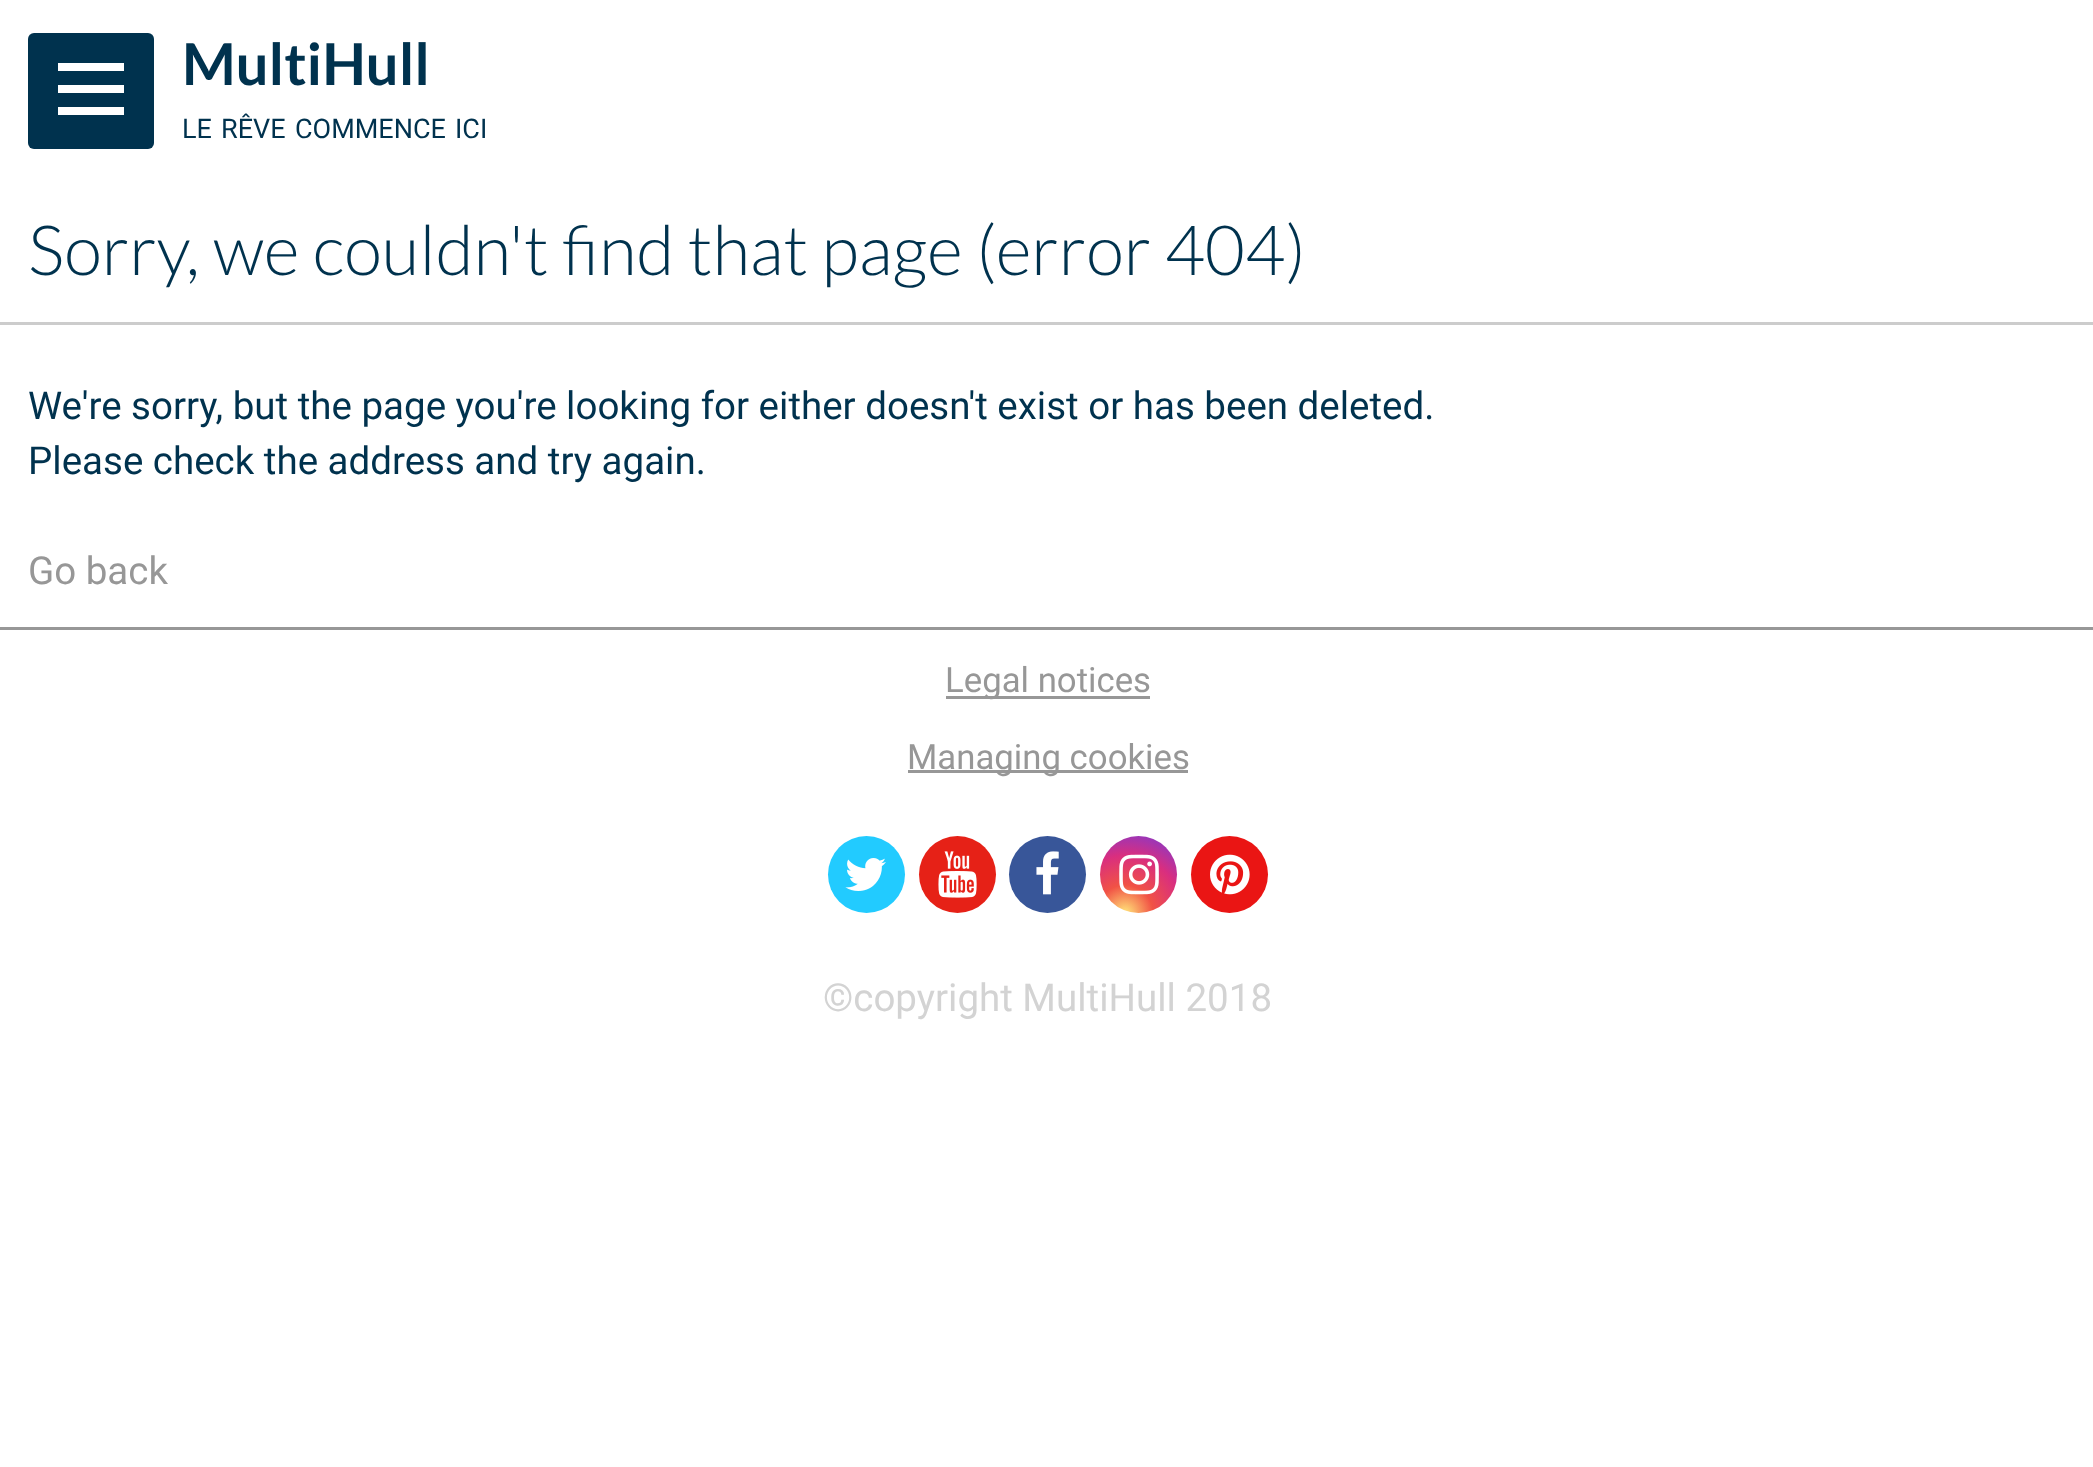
<!DOCTYPE html>
<meta charset="utf-8">
<style>body { margin: 0 } canvas { display: block }</style>
<canvas id="canvas" width="2093" height="1467"></canvas>
<script type="module">
  const canvas = document.getElementById("canvas");
  const ctx = canvas.getContext("2d");
  ctx.miterLimit = 4;
  ctx.fontKerning = "normal";
  async function loadImage(src) {
    const img = new Image();
    img.src = src;
    await img.decode();
    return img;
  }
  let gradient;

  ctx.fillStyle = "#ffffff";
  ctx.fillRect(0, 0, 2093, 1467);
  ctx.fillStyle = "#00324e";
  ctx.beginPath();
  ctx.roundRect(28, 33, 126, 116, 6);
  ctx.fill();
  ctx.fillStyle = "#ffffff";
  ctx.fillRect(58, 85, 66, 8);
  ctx.fillRect(58, 63, 66, 8);
  ctx.fillRect(58, 107, 66, 8);
  ctx.font = "bold 57.75px Lato";
  ctx.fillStyle = "#00324e";
  ctx.fillText("MultiHull", 182, 85);
  ctx.font = "27px Roboto";
  ctx.fillText("LE", 182, 138);
  ctx.fillText("RÊVE", 221, 138);
  ctx.fillText("COMMENCE", 295, 138);
  ctx.fillText("ICI", 455, 138);
  ctx.fillStyle = "#cccccc";
  ctx.fillRect(0, 322, 2093, 3);
  ctx.font = "300 69.25px Lato";
  ctx.fillStyle = "#00324e";
  ctx.fillText("Sorry, we couldn't find that page (error 404)", 28, 275);
  ctx.font = "38.5px Roboto";
  ctx.fillText("We're sorry, but the page you're looking for either doesn't exist or has been deleted.", 28, 419);
  ctx.fillText("Please check the address and try again.", 28, 474);
  ctx.fillStyle = "#979797";
  ctx.fillText("Go back", 28, 584);
  ctx.fillRect(0, 627, 2093, 3);
  ctx.fillRect(946, 696, 204, 3);
  ctx.font = "34.75px Roboto";
  ctx.fillText("Legal notices", 945, 692);
  ctx.fillRect(908, 770, 280, 3);
  ctx.fillText("Managing cookies", 907, 769);
  ctx.fillStyle = "#22cbff";
  ctx.beginPath();
  ctx.arc(866.5, 874.5, 38.5, 0, Math.PI * 2);
  ctx.fill();
  ctx.drawImage(await loadImage("img1.png"), 845, 858, 41, 33);
  ctx.fillStyle = "#e62117";
  ctx.beginPath();
  ctx.arc(957.5, 874.5, 38.5, 0, Math.PI * 2);
  ctx.fill();
  ctx.drawImage(await loadImage("img2.png"), 938, 851, 39, 47);
  ctx.fillStyle = "#385699";
  ctx.beginPath();
  ctx.arc(1047.5, 874.5, 38.5, 0, Math.PI * 2);
  ctx.fill();
  ctx.drawImage(await loadImage("img3.png"), 1036, 851, 23, 44);
  gradient = ctx.createRadialGradient(1125, 913, 0, 1125, 913, 93);
  gradient.addColorStop(0.04, "#fed373");
  gradient.addColorStop(0.3, "#f15245");
  gradient.addColorStop(0.62, "#d92e7f");
  gradient.addColorStop(0.85, "#9b36b7");
  gradient.addColorStop(1, "#515ecf");
  ctx.fillStyle = gradient;
  ctx.beginPath();
  ctx.arc(1138.5, 874.5, 38.5, 0, Math.PI * 2);
  ctx.fill();
  ctx.drawImage(await loadImage("img4.png"), 1119, 854, 40, 41);
  ctx.fillStyle = "#ea1514";
  ctx.beginPath();
  ctx.arc(1229.5, 874.5, 38.5, 0, Math.PI * 2);
  ctx.fill();
  ctx.drawImage(await loadImage("img5.png"), 1210, 854, 40, 41);
  ctx.font = "38.5px Roboto";
  ctx.fillStyle = "#d3d3d3";
  ctx.fillText("©copyright MultiHull 2018", 823, 1011);
</script>
